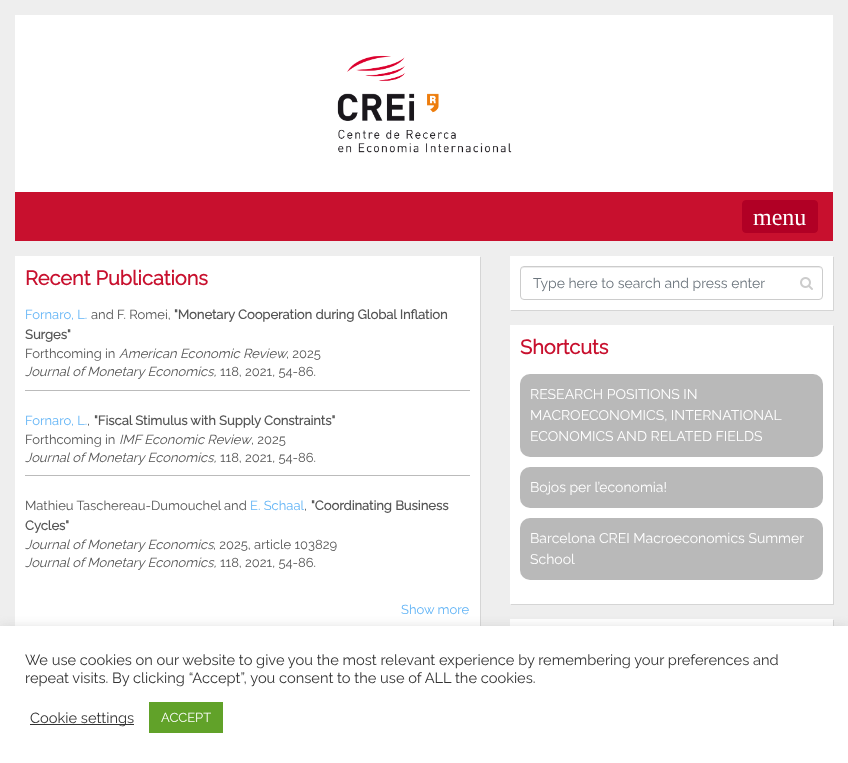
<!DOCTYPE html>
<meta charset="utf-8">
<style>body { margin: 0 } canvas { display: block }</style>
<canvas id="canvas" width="848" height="763"></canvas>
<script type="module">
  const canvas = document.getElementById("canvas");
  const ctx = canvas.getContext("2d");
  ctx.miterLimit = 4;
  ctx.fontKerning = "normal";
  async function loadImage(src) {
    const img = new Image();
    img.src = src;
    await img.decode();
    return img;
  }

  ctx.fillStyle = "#eeeeee";
  ctx.fillRect(0, 0, 848, 763);
  ctx.fillStyle = "#ffffff";
  ctx.fillRect(15, 15, 818, 177);
  ctx.drawImage(await loadImage("img1.png"), 337, 55, 175, 98);
  ctx.fillStyle = "#c8102e";
  ctx.fillRect(15, 192, 818, 49);
  ctx.fillStyle = "#b10025";
  ctx.beginPath();
  ctx.roundRect(742.5, 200.5, 75, 32, 3.5);
  ctx.fill();
  ctx.strokeStyle = "#b10025";
  ctx.stroke();
  ctx.font = "24px Liberation Serif";
  ctx.fillStyle = "#ffffff";
  ctx.fillText("menu", 753, 225);
  ctx.fillStyle = "rgba(0, 0, 0, 0.1)";
  ctx.filter = "blur(0.5px)";
  ctx.beginPath();
  ctx.rect(16, 257, 465, 374);
  ctx.fill();
  ctx.filter = "none";
  ctx.fillStyle = "#ffffff";
  ctx.fillRect(15, 256, 465, 370);
  ctx.font = "bold 20px Raleway";
  ctx.fillStyle = "#c8102e";
  ctx.fillText("Recent Publications", 25, 285);
  ctx.fillStyle = "#bbbbbb";
  ctx.fillRect(25, 390, 445, 1);
  ctx.font = "13px Raleway";
  ctx.fillStyle = "#64b5f6";
  ctx.fillText("Fornaro, L.", 25, 319);
  ctx.fillStyle = "#555555";
  ctx.fillText("and F. Romei,", 91, 319);
  ctx.font = "bold 13px Raleway";
  ctx.fillText("\"Monetary Cooperation during Global Inflation", 174, 319);
  ctx.fillText("Surges\"", 25, 339);
  ctx.font = "13px Raleway";
  ctx.fillText("Forthcoming in", 25, 358);
  ctx.font = "italic 13px Raleway";
  ctx.fillText("American Economic Review", 119, 358);
  ctx.font = "13px Raleway";
  ctx.fillText(", 2025", 286, 358);
  ctx.font = "italic 13px Raleway";
  ctx.fillText("Journal of Monetary Economics,", 25, 376);
  ctx.font = "13px Raleway";
  ctx.fillText("118, 2021, 54-86.", 220, 376);
  ctx.fillStyle = "#bbbbbb";
  ctx.fillRect(25, 475, 445, 1);
  ctx.fillStyle = "#64b5f6";
  ctx.fillText("Fornaro, L.", 25, 425);
  ctx.fillStyle = "#555555";
  ctx.fillText(",", 87, 425);
  ctx.font = "bold 13px Raleway";
  ctx.fillText("\"Fiscal Stimulus with Supply Constraints\"", 94, 425);
  ctx.font = "13px Raleway";
  ctx.fillText("Forthcoming in", 25, 444);
  ctx.font = "italic 13px Raleway";
  ctx.fillText("IMF Economic Review", 119, 444);
  ctx.font = "13px Raleway";
  ctx.fillText(", 2025", 251, 444);
  ctx.font = "italic 13px Raleway";
  ctx.fillText("Journal of Monetary Economics,", 25, 462);
  ctx.font = "13px Raleway";
  ctx.fillText("118, 2021, 54-86.", 220, 462);
  ctx.fillText("Mathieu Taschereau-Dumouchel", 25, 510);
  ctx.fillText("and", 224, 510);
  ctx.fillStyle = "#64b5f6";
  ctx.fillText("E. Schaal", 250, 510);
  ctx.fillStyle = "#555555";
  ctx.fillText(",", 304, 510);
  ctx.font = "bold 13px Raleway";
  ctx.fillText("\"Coordinating Business", 311, 510);
  ctx.fillText("Cycles\"", 25, 530);
  ctx.font = "italic 13px Raleway";
  ctx.fillText("Journal of Monetary Economics", 25, 549);
  ctx.font = "13px Raleway";
  ctx.fillText(", 2025, article 103829", 213, 549);
  ctx.font = "italic 13px Raleway";
  ctx.fillText("Journal of Monetary Economics,", 25, 567);
  ctx.font = "13px Raleway";
  ctx.fillText("118, 2021, 54-86.", 220, 567);
  ctx.fillStyle = "#64b5f6";
  ctx.fillText("Show more", 401, 614);
  ctx.fillStyle = "rgba(0, 0, 0, 0.1)";
  ctx.filter = "blur(0.5px)";
  ctx.beginPath();
  ctx.rect(511, 257, 323, 54);
  ctx.fill();
  ctx.filter = "none";
  ctx.fillStyle = "#ffffff";
  ctx.fillRect(510, 256, 323, 54);
  ctx.fillStyle = "#ececec";
  ctx.beginPath();
  ctx.moveTo(524, 268);
  ctx.lineTo(819, 268);
  ctx.bezierCurveTo(821, 268, 822, 269, 822, 271);
  ctx.lineTo(821, 268);
  ctx.lineTo(820, 267);
  ctx.lineTo(524, 267);
  ctx.bezierCurveTo(522, 267, 521, 269, 521, 271);
  ctx.bezierCurveTo(521, 269, 522, 268, 524, 268);
  ctx.closePath();
  ctx.fill();
  ctx.beginPath();
  ctx.roundRect(520.5, 266.5, 302, 33, 3.5);
  ctx.strokeStyle = "#cccccc";
  ctx.stroke();
  ctx.font = "14px Raleway";
  ctx.fillStyle = "#6c757d";
  ctx.fillText("Type here to search and press enter", 533, 288);
  ctx.drawImage(await loadImage("img2.png"), 800, 277, 13, 13);
  ctx.fillStyle = "rgba(0, 0, 0, 0.1)";
  ctx.filter = "blur(0.5px)";
  ctx.beginPath();
  ctx.rect(511, 326, 323, 279);
  ctx.fill();
  ctx.filter = "none";
  ctx.fillStyle = "#ffffff";
  ctx.fillRect(510, 325, 323, 279);
  ctx.font = "bold 20px Raleway";
  ctx.fillStyle = "#c8102e";
  ctx.fillText("Shortcuts", 520, 354);
  ctx.fillStyle = "#b9b9b9";
  ctx.beginPath();
  ctx.roundRect(520, 374, 303, 83, 10);
  ctx.fill();
  ctx.font = "14px Raleway";
  ctx.fillStyle = "#ffffff";
  ctx.fillText("RESEARCH POSITIONS IN", 530, 399);
  ctx.fillText("MACROECONOMICS, INTERNATIONAL", 530, 420);
  ctx.fillText("ECONOMICS AND RELATED FIELDS", 530, 441);
  ctx.fillStyle = "#b9b9b9";
  ctx.beginPath();
  ctx.roundRect(520, 467, 303, 41, 10);
  ctx.fill();
  ctx.fillStyle = "#ffffff";
  ctx.fillText("Bojos per l’economia!", 530, 492);
  ctx.fillStyle = "#b9b9b9";
  ctx.beginPath();
  ctx.roundRect(520, 518, 303, 62, 10);
  ctx.fill();
  ctx.fillStyle = "#ffffff";
  ctx.fillText("Barcelona CREI Macroeconomics Summer", 530, 543);
  ctx.fillText("School", 530, 564);
  ctx.fillStyle = "rgba(0, 0, 0, 0.1)";
  ctx.filter = "blur(0.5px)";
  ctx.beginPath();
  ctx.rect(511, 620, 323, 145);
  ctx.fill();
  ctx.filter = "none";
  ctx.fillStyle = "#ffffff";
  ctx.fillRect(510, 619, 323, 7);
  ctx.fillStyle = "rgba(172, 171, 171, 0.3)";
  ctx.filter = "blur(5px)";
  ctx.beginPath();
  ctx.rect(0, 625, 848, 137);
  ctx.fill();
  ctx.filter = "none";
  ctx.fillStyle = "#ffffff";
  ctx.fillRect(0, 626, 848, 137);
  ctx.font = "14.67px Raleway";
  ctx.fillStyle = "#333333";
  ctx.fillText("We use cookies on our website to give you the most relevant experience by remembering your preferences and", 25, 665);
  ctx.fillText("repeat visits. By clicking “Accept”, you consent to the use of ALL the cookies.", 25, 683);
  ctx.fillRect(30, 724, 104, 1);
  ctx.fillText("Cookie settings", 30, 723);
  ctx.fillStyle = "#61a229";
  ctx.fillRect(149, 702, 74, 31);
  ctx.font = "13px Raleway";
  ctx.fillStyle = "#ffffff";
  ctx.fillText("ACCEPT", 161, 722);
</script>
